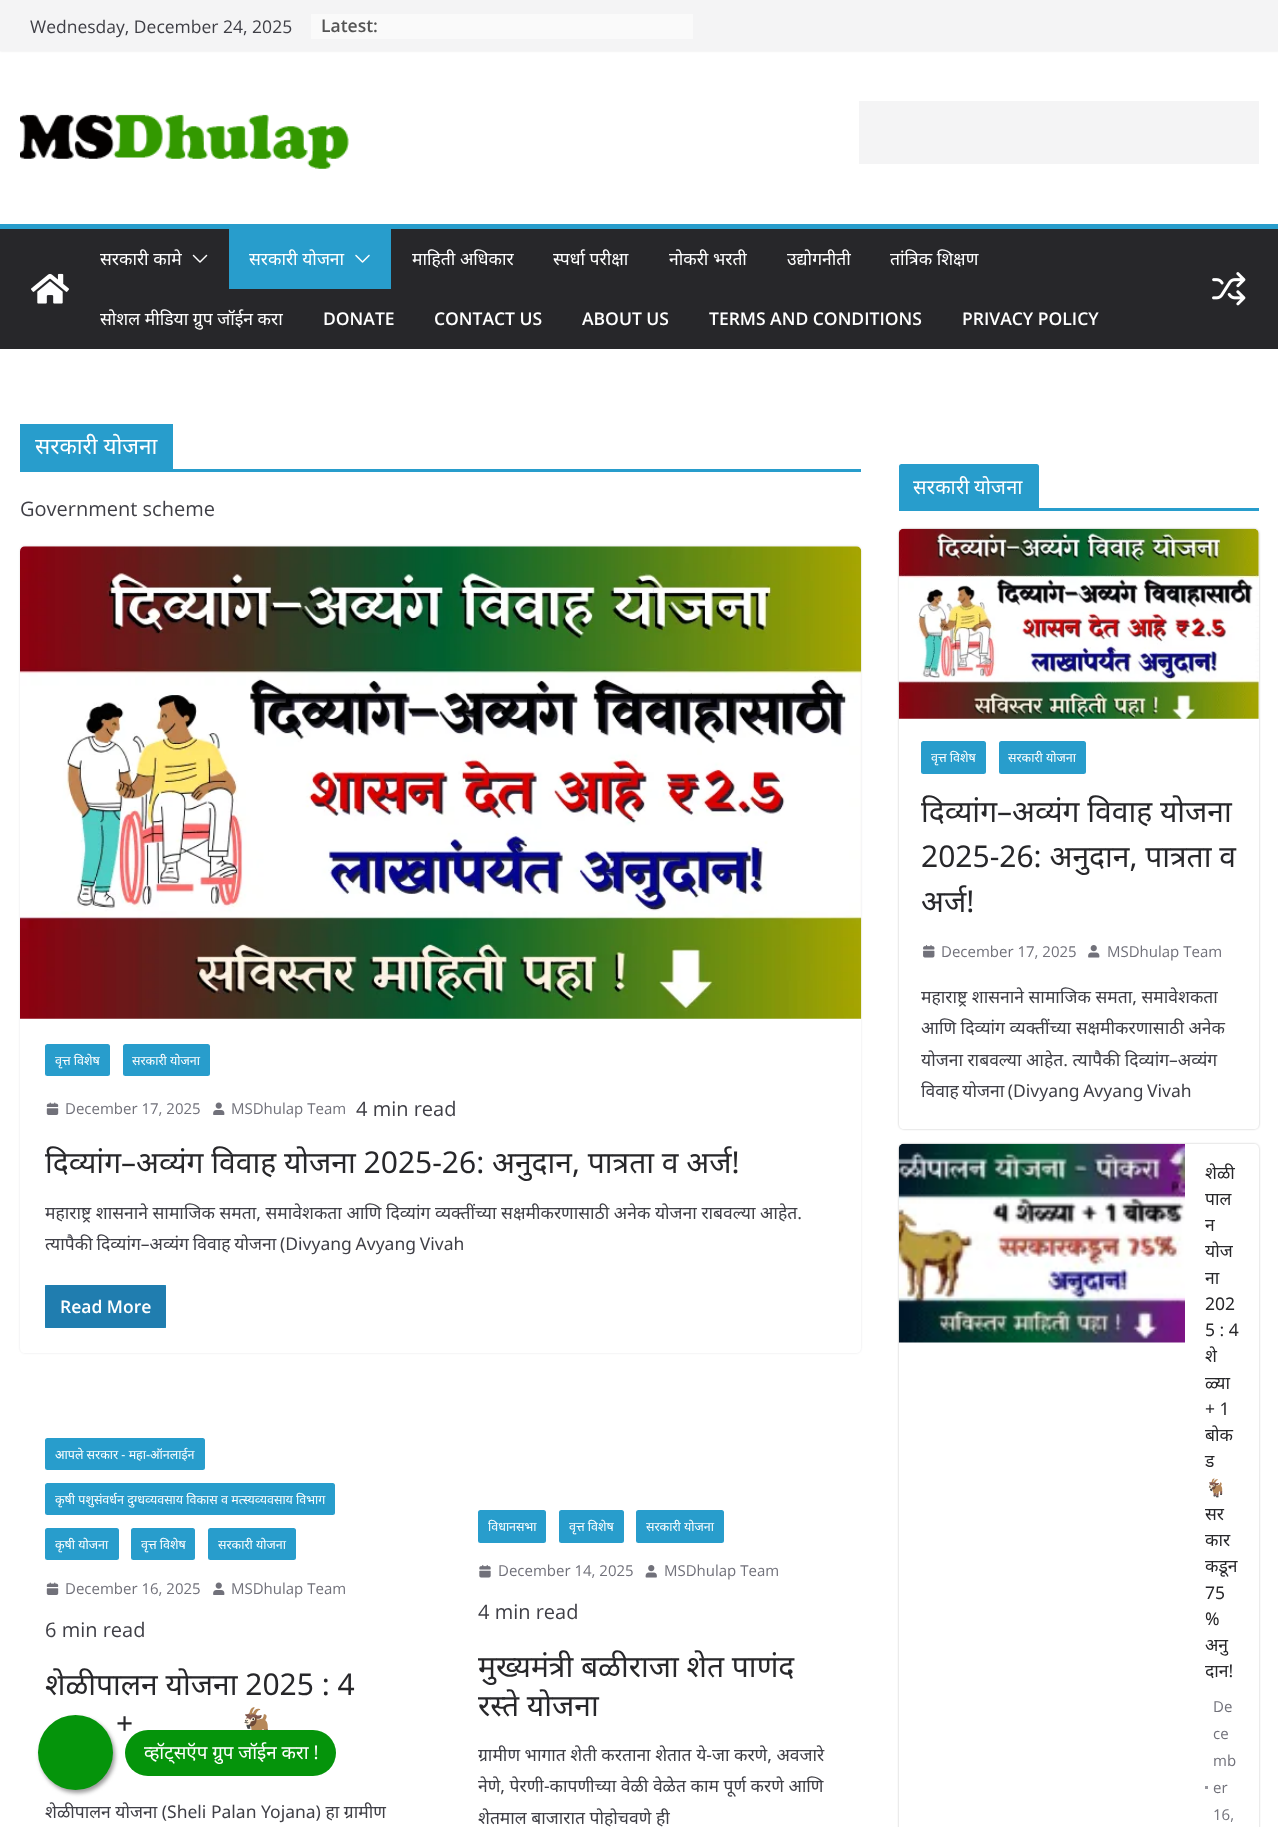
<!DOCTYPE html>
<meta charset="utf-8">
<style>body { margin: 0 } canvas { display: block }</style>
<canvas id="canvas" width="1278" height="1827"></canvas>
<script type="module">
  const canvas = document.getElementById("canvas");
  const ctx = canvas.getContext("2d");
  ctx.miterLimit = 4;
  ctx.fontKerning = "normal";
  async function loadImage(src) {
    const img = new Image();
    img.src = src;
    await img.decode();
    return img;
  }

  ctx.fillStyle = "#ffffff";
  ctx.fillRect(0, 0, 1278, 1827);
  ctx.fillStyle = "rgba(0, 0, 0, 0.1)";
  ctx.filter = "blur(1px)";
  ctx.beginPath();
  ctx.rect(0, 0, 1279, 51);
  ctx.fill();
  ctx.filter = "none";
  ctx.fillStyle = "#f4f4f5";
  ctx.fillRect(0, 0, 1278, 51);
  ctx.font = "17.5px Open Sans";
  ctx.fillStyle = "#3f3f46";
  ctx.fillText("Wednesday, December 24, 2025", 30, 33);
  ctx.fillStyle = "#fafafa";
  ctx.fillRect(311, 14, 382, 25);
  ctx.font = "600 17.5px Open Sans";
  ctx.fillStyle = "#555555";
  ctx.fillText("Latest:", 321, 32);
  ctx.drawImage(await loadImage("img1.png"), 20, 114, 329, 55);
  ctx.fillStyle = "#f4f4f5";
  ctx.fillRect(859, 101, 400, 63);
  ctx.fillStyle = "#27272a";
  ctx.fillRect(0, 229, 1278, 120);
  ctx.fillStyle = "#289dcc";
  ctx.fillRect(0, 224, 1278, 5);
  ctx.drawImage(await loadImage("img2.png"), 31, 273, 38, 31);
  ctx.font = "17.5px Noto Sans";
  ctx.fillStyle = "#ffffff";
  ctx.fillText("सरकारी कामे", 100, 265);
  ctx.drawImage(await loadImage("img3.png"), 192, 254, 16, 9);
  ctx.fillStyle = "#289dcc";
  ctx.fillRect(229, 229, 162, 60);
  ctx.fillStyle = "#ffffff";
  ctx.fillText("सरकारी योजना", 249, 265);
  ctx.drawImage(await loadImage("img4.png"), 355, 254, 15, 9);
  ctx.fillText("माहिती अधिकार", 412, 265);
  ctx.fillText("स्पर्धा परीक्षा", 553, 265);
  ctx.fillText("नोकरी भरती", 669, 265);
  ctx.fillText("उद्योगनीती", 787, 265);
  ctx.fillText("तांत्रिक शिक्षण", 890, 265);
  ctx.fillText("सोशल मीडिया ग्रुप जॉईन करा", 100, 325);
  ctx.font = "600 17.5px Open Sans";
  ctx.fillText("DONATE", 323, 325);
  ctx.fillText("CONTACT US", 434, 325);
  ctx.fillText("ABOUT US", 582, 325);
  ctx.fillText("TERMS AND CONDITIONS", 709, 325);
  ctx.fillText("PRIVACY POLICY", 962, 325);
  ctx.drawImage(await loadImage("img5.png"), 1212, 272, 34, 34);
  ctx.fillStyle = "#289dcc";
  ctx.fillRect(20, 469, 841, 3);
  ctx.fillRect(20, 424, 153, 45);
  ctx.font = "22.5px Noto Sans";
  ctx.fillStyle = "#ffffff";
  ctx.fillText("सरकारी योजना", 35, 454);
  ctx.font = "20px Open Sans";
  ctx.fillStyle = "#3f3f46";
  ctx.fillText("Government scheme", 20, 516);
  ctx.save();
  ctx.beginPath();
  ctx.moveTo(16, 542);
  ctx.lineTo(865, 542);
  ctx.lineTo(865, 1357);
  ctx.lineTo(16, 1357);
  ctx.closePath();
  ctx.moveTo(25, 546);
  ctx.lineTo(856, 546);
  ctx.bezierCurveTo(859, 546, 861, 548, 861, 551);
  ctx.lineTo(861, 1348);
  ctx.bezierCurveTo(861, 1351, 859, 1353, 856, 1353);
  ctx.lineTo(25, 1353);
  ctx.bezierCurveTo(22, 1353, 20, 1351, 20, 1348);
  ctx.lineTo(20, 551);
  ctx.bezierCurveTo(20, 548, 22, 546, 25, 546);
  ctx.closePath();
  ctx.clip("evenodd");
  ctx.fillStyle = "#e4e4e7";
  ctx.filter = "blur(1px)";
  ctx.beginPath();
  ctx.roundRect(20, 546, 841, 807, 5);
  ctx.fill();
  ctx.filter = "none";
  ctx.restore();
  ctx.drawImage(await loadImage("img6.png"), 20, 546, 842, 473);
  ctx.fillStyle = "#289dcc";
  ctx.beginPath();
  ctx.roundRect(45, 1044, 65, 32, 2.5);
  ctx.fill();
  ctx.font = "12.5px Noto Sans";
  ctx.fillStyle = "#ffffff";
  ctx.fillText("वृत्त विशेष", 55, 1065);
  ctx.fillStyle = "#289dcc";
  ctx.beginPath();
  ctx.roundRect(123, 1044, 87, 32, 2.5);
  ctx.fill();
  ctx.fillStyle = "#ffffff";
  ctx.fillText("सरकारी योजना", 132, 1065);
  ctx.drawImage(await loadImage("img7.png"), 46, 1102, 13, 13);
  ctx.font = "15px Open Sans";
  ctx.fillStyle = "#71717a";
  ctx.fillText("December 17, 2025", 65, 1114);
  ctx.drawImage(await loadImage("img8.png"), 213, 1102, 12, 13);
  ctx.fillText("MSDhulap Team", 231, 1114);
  ctx.font = "20px Open Sans";
  ctx.fillStyle = "#3f3f46";
  ctx.fillText("4 min read", 356, 1116);
  ctx.font = "30px Noto Sans";
  ctx.fillStyle = "#27272a";
  ctx.fillText("दिव्यांग–अव्यंग विवाह योजना 2025-26: अनुदान, पात्रता व अर्ज!", 45, 1173);
  ctx.font = "17.5px Noto Sans";
  ctx.fillStyle = "#3f3f46";
  ctx.fillText("महाराष्ट्र शासनाने सामाजिक समता, समावेशकता आणि दिव्यांग व्यक्तींच्या सक्षमीकरणासाठी अनेक योजना राबवल्या आहेत.", 45, 1219);
  ctx.wordSpacing = "-0.75px";
  ctx.fillText("त्यापैकी दिव्यांग–अव्यंग विवाह योजना (Divyang Avyang Vivah", 45, 1250);
  ctx.fillStyle = "#289dcc";
  ctx.fillRect(45, 1285, 121, 43);
  ctx.fillStyle = "#207daf";
  ctx.beginPath();
  ctx.roundRect(45, 1285, 121, 43, 2.5);
  ctx.fill();
  ctx.wordSpacing = "0px";
  ctx.font = "600 17.5px Open Sans";
  ctx.fillStyle = "#ffffff";
  ctx.fillText("Read More", 60, 1313);
  ctx.fillStyle = "#289dcc";
  ctx.beginPath();
  ctx.roundRect(45, 1438, 160, 32, 2.5);
  ctx.fill();
  ctx.font = "12.5px Noto Sans";
  ctx.fillStyle = "#ffffff";
  ctx.fillText("आपले सरकार - महा-ऑनलाईन", 55, 1459);
  ctx.fillStyle = "#289dcc";
  ctx.beginPath();
  ctx.roundRect(45, 1483, 290, 32, 2.5);
  ctx.fill();
  ctx.fillStyle = "#ffffff";
  ctx.fillText("कृषी पशुसंवर्धन दुग्‍धव्‍यवसाय विकास व मत्‍स्‍यव्‍यवसाय विभाग", 55, 1504);
  ctx.fillStyle = "#289dcc";
  ctx.beginPath();
  ctx.roundRect(45, 1528, 74, 32, 2.5);
  ctx.fill();
  ctx.fillStyle = "#ffffff";
  ctx.fillText("कृषी योजना", 55, 1549);
  ctx.fillStyle = "#289dcc";
  ctx.beginPath();
  ctx.roundRect(131, 1528, 64, 32, 2.5);
  ctx.fill();
  ctx.fillStyle = "#ffffff";
  ctx.fillText("वृत्त विशेष", 141, 1549);
  ctx.fillStyle = "#289dcc";
  ctx.beginPath();
  ctx.roundRect(208, 1528, 88, 32, 2.5);
  ctx.fill();
  ctx.fillStyle = "#ffffff";
  ctx.fillText("सरकारी योजना", 218, 1549);
  ctx.drawImage(await loadImage("img7.png"), 46, 1582, 13, 13);
  ctx.font = "15px Open Sans";
  ctx.fillStyle = "#71717a";
  ctx.fillText("December 16, 2025", 65, 1594);
  ctx.drawImage(await loadImage("img8.png"), 213, 1582, 12, 13);
  ctx.fillText("MSDhulap Team", 231, 1594);
  ctx.font = "20px Open Sans";
  ctx.fillStyle = "#3f3f46";
  ctx.fillText("6 min read", 45, 1637);
  ctx.font = "30px Noto Sans";
  ctx.fillStyle = "#27272a";
  ctx.fillText("शेळीपालन योजना 2025 : 4", 45, 1695);
  ctx.fillText("+", 116, 1734);
  ctx.font = "30px Noto Color Emoji";
  ctx.fillText("🐐", 238, 1734);
  ctx.font = "17.5px Noto Sans";
  ctx.fillStyle = "#3f3f46";
  ctx.fillText("शेळीपालन योजना (Sheli Palan Yojana) हा ग्रामीण", 45, 1818);
  ctx.fillStyle = "#289dcc";
  ctx.beginPath();
  ctx.roundRect(478, 1510, 68, 33, 2.5);
  ctx.fill();
  ctx.font = "12.5px Noto Sans";
  ctx.fillStyle = "#ffffff";
  ctx.fillText("विधानसभा", 488, 1531);
  ctx.fillStyle = "#289dcc";
  ctx.beginPath();
  ctx.roundRect(559, 1510, 65, 33, 2.5);
  ctx.fill();
  ctx.fillStyle = "#ffffff";
  ctx.fillText("वृत्त विशेष", 569, 1531);
  ctx.fillStyle = "#289dcc";
  ctx.beginPath();
  ctx.roundRect(636, 1510, 88, 33, 2.5);
  ctx.fill();
  ctx.fillStyle = "#ffffff";
  ctx.fillText("सरकारी योजना", 646, 1531);
  ctx.drawImage(await loadImage("img9.png"), 479, 1565, 12, 13);
  ctx.font = "15px Open Sans";
  ctx.fillStyle = "#71717a";
  ctx.fillText("December 14, 2025", 498, 1576);
  ctx.drawImage(await loadImage("img10.png"), 645, 1565, 12, 13);
  ctx.fillText("MSDhulap Team", 664, 1576);
  ctx.font = "20px Open Sans";
  ctx.fillStyle = "#3f3f46";
  ctx.fillText("4 min read", 478, 1619);
  ctx.font = "30px Noto Sans";
  ctx.fillStyle = "#27272a";
  ctx.fillText("मुख्यमंत्री बळीराजा शेत पाणंद", 478, 1677);
  ctx.fillText("रस्ते योजना", 478, 1716);
  ctx.font = "17.5px Noto Sans";
  ctx.fillStyle = "#3f3f46";
  ctx.fillText("ग्रामीण भागात शेती करताना शेतात ये-जा करणे, अवजारे", 478, 1761);
  ctx.fillText("नेणे, पेरणी-कापणीच्या वेळी वेळेत काम पूर्ण करणे आणि", 478, 1792);
  ctx.fillText("शेतमाल बाजारात पोहोचवणे ही", 478, 1824);
  ctx.fillStyle = "#289dcc";
  ctx.fillRect(899, 508, 360, 3);
  ctx.beginPath();
  ctx.roundRect(899, 464, 140, 44, [2.5, 2.5, 0, 0]);
  ctx.fill();
  ctx.letterSpacing = "0.25px";
  ctx.wordSpacing = "-1px";
  ctx.font = "20px Noto Sans";
  ctx.fillStyle = "#ffffff";
  ctx.fillText("सरकारी योजना", 913, 494);
  ctx.save();
  ctx.beginPath();
  ctx.moveTo(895, 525);
  ctx.lineTo(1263, 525);
  ctx.lineTo(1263, 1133);
  ctx.lineTo(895, 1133);
  ctx.closePath();
  ctx.moveTo(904, 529);
  ctx.lineTo(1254, 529);
  ctx.bezierCurveTo(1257, 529, 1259, 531, 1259, 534);
  ctx.lineTo(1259, 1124);
  ctx.bezierCurveTo(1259, 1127, 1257, 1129, 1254, 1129);
  ctx.lineTo(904, 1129);
  ctx.bezierCurveTo(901, 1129, 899, 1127, 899, 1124);
  ctx.lineTo(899, 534);
  ctx.bezierCurveTo(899, 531, 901, 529, 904, 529);
  ctx.closePath();
  ctx.clip("evenodd");
  ctx.fillStyle = "rgba(0, 0, 0, 0.24)";
  ctx.filter = "blur(1px)";
  ctx.beginPath();
  ctx.roundRect(899, 529, 360, 600, 5);
  ctx.fill();
  ctx.filter = "none";
  ctx.restore();
  ctx.drawImage(await loadImage("img11.png"), 898, 528, 361, 191);
  ctx.fillStyle = "#289dcc";
  ctx.beginPath();
  ctx.roundRect(921, 741, 65, 33, 2.5);
  ctx.fill();
  ctx.letterSpacing = "0px";
  ctx.wordSpacing = "0px";
  ctx.font = "12.5px Noto Sans";
  ctx.fillStyle = "#ffffff";
  ctx.fillText("वृत्त विशेष", 931, 762);
  ctx.fillStyle = "#289dcc";
  ctx.beginPath();
  ctx.roundRect(999, 741, 87, 33, 2.5);
  ctx.fill();
  ctx.fillStyle = "#ffffff";
  ctx.fillText("सरकारी योजना", 1008, 762);
  ctx.font = "30px Noto Sans";
  ctx.fillStyle = "#27272a";
  ctx.fillText("दिव्यांग–अव्यंग विवाह योजना", 921, 822);
  ctx.fillText("2025-26: अनुदान, पात्रता व", 921, 867);
  ctx.fillText("अर्ज!", 921, 912);
  ctx.drawImage(await loadImage("img12.png"), 923, 945, 12, 13);
  ctx.font = "15px Open Sans";
  ctx.fillStyle = "#71717a";
  ctx.fillText("December 17, 2025", 941, 957);
  ctx.drawImage(await loadImage("img13.png"), 1088, 945, 12, 13);
  ctx.fillText("MSDhulap Team", 1107, 957);
  ctx.font = "17.5px Noto Sans";
  ctx.fillStyle = "#3f3f46";
  ctx.fillText("महाराष्ट्र शासनाने सामाजिक समता, समावेशकता", 921, 1003);
  ctx.fillText("आणि दिव्यांग व्यक्तींच्या सक्षमीकरणासाठी अनेक", 921, 1034);
  ctx.fillText("योजना राबवल्या आहेत. त्यापैकी दिव्यांग–अव्यंग", 921, 1066);
  ctx.wordSpacing = "-1px";
  ctx.fillText("विवाह योजना (Divyang Avyang Vivah", 921, 1097);
  ctx.save();
  ctx.beginPath();
  ctx.moveTo(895, 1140);
  ctx.lineTo(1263, 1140);
  ctx.lineTo(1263, 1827);
  ctx.lineTo(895, 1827);
  ctx.closePath();
  ctx.moveTo(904, 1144);
  ctx.lineTo(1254, 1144);
  ctx.bezierCurveTo(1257, 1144, 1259, 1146, 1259, 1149);
  ctx.lineTo(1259, 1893);
  ctx.bezierCurveTo(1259, 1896, 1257, 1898, 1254, 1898);
  ctx.lineTo(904, 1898);
  ctx.bezierCurveTo(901, 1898, 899, 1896, 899, 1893);
  ctx.lineTo(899, 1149);
  ctx.bezierCurveTo(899, 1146, 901, 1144, 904, 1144);
  ctx.closePath();
  ctx.clip("evenodd");
  ctx.fillStyle = "rgba(0, 0, 0, 0.24)";
  ctx.filter = "blur(1px)";
  ctx.beginPath();
  ctx.roundRect(899, 1144, 360, 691, 5);
  ctx.fill();
  ctx.filter = "none";
  ctx.restore();
  ctx.drawImage(await loadImage("img14.png"), 898, 1143, 287, 200);
  ctx.wordSpacing = "0px";
  ctx.fillStyle = "#27272a";
  ctx.fillText("शेळी", 1205, 1179);
  ctx.fillText("पाल", 1205, 1205);
  ctx.fillText("न", 1205, 1231);
  ctx.fillText("योज", 1205, 1257);
  ctx.fillText("ना", 1205, 1284);
  ctx.fillText("202", 1205, 1310);
  ctx.fillText("5 : 4", 1205, 1336);
  ctx.fillText("शे", 1205, 1362);
  ctx.fillText("ळ्या", 1205, 1389);
  ctx.fillText("+ 1", 1205, 1415);
  ctx.fillText("बोक", 1205, 1441);
  ctx.fillText("ड", 1205, 1467);
  ctx.font = "17.5px Noto Color Emoji";
  ctx.fillText("🐐", 1205, 1494);
  ctx.font = "17.5px Noto Sans";
  ctx.fillText("सर", 1205, 1520);
  ctx.fillText("कार", 1205, 1546);
  ctx.fillText("कडून", 1205, 1572);
  ctx.fillText("75", 1205, 1599);
  ctx.fillText("%", 1205, 1625);
  ctx.fillText("अनु", 1205, 1651);
  ctx.fillText("दान!", 1205, 1677);
  ctx.fillStyle = "#97979e";
  ctx.fillRect(1205, 1786, 3, 3);
  ctx.font = "15px Open Sans";
  ctx.fillStyle = "#71717a";
  ctx.fillText("De", 1213, 1712);
  ctx.fillText("ce", 1213, 1739);
  ctx.fillText("mb", 1213, 1766);
  ctx.fillText("er", 1213, 1793);
  ctx.fillText("16,", 1213, 1820);
  ctx.fillStyle = "#999999";
  ctx.filter = "blur(2px)";
  ctx.beginPath();
  ctx.roundRect(40, 1718, 75, 75, 37.5);
  ctx.fill();
  ctx.filter = "none";
  ctx.fillStyle = "#05940b";
  ctx.beginPath();
  ctx.arc(75.5, 1752.5, 37.5, 0, Math.PI * 2);
  ctx.fill();
  ctx.beginPath();
  ctx.roundRect(125, 1730, 211, 46, 23);
  ctx.fill();
  ctx.font = "18.75px Noto Sans";
  ctx.fillStyle = "#ffffff";
  ctx.fillText("व्हॉट्सऍप ग्रुप जॉईन करा !", 144, 1759);
</script>
